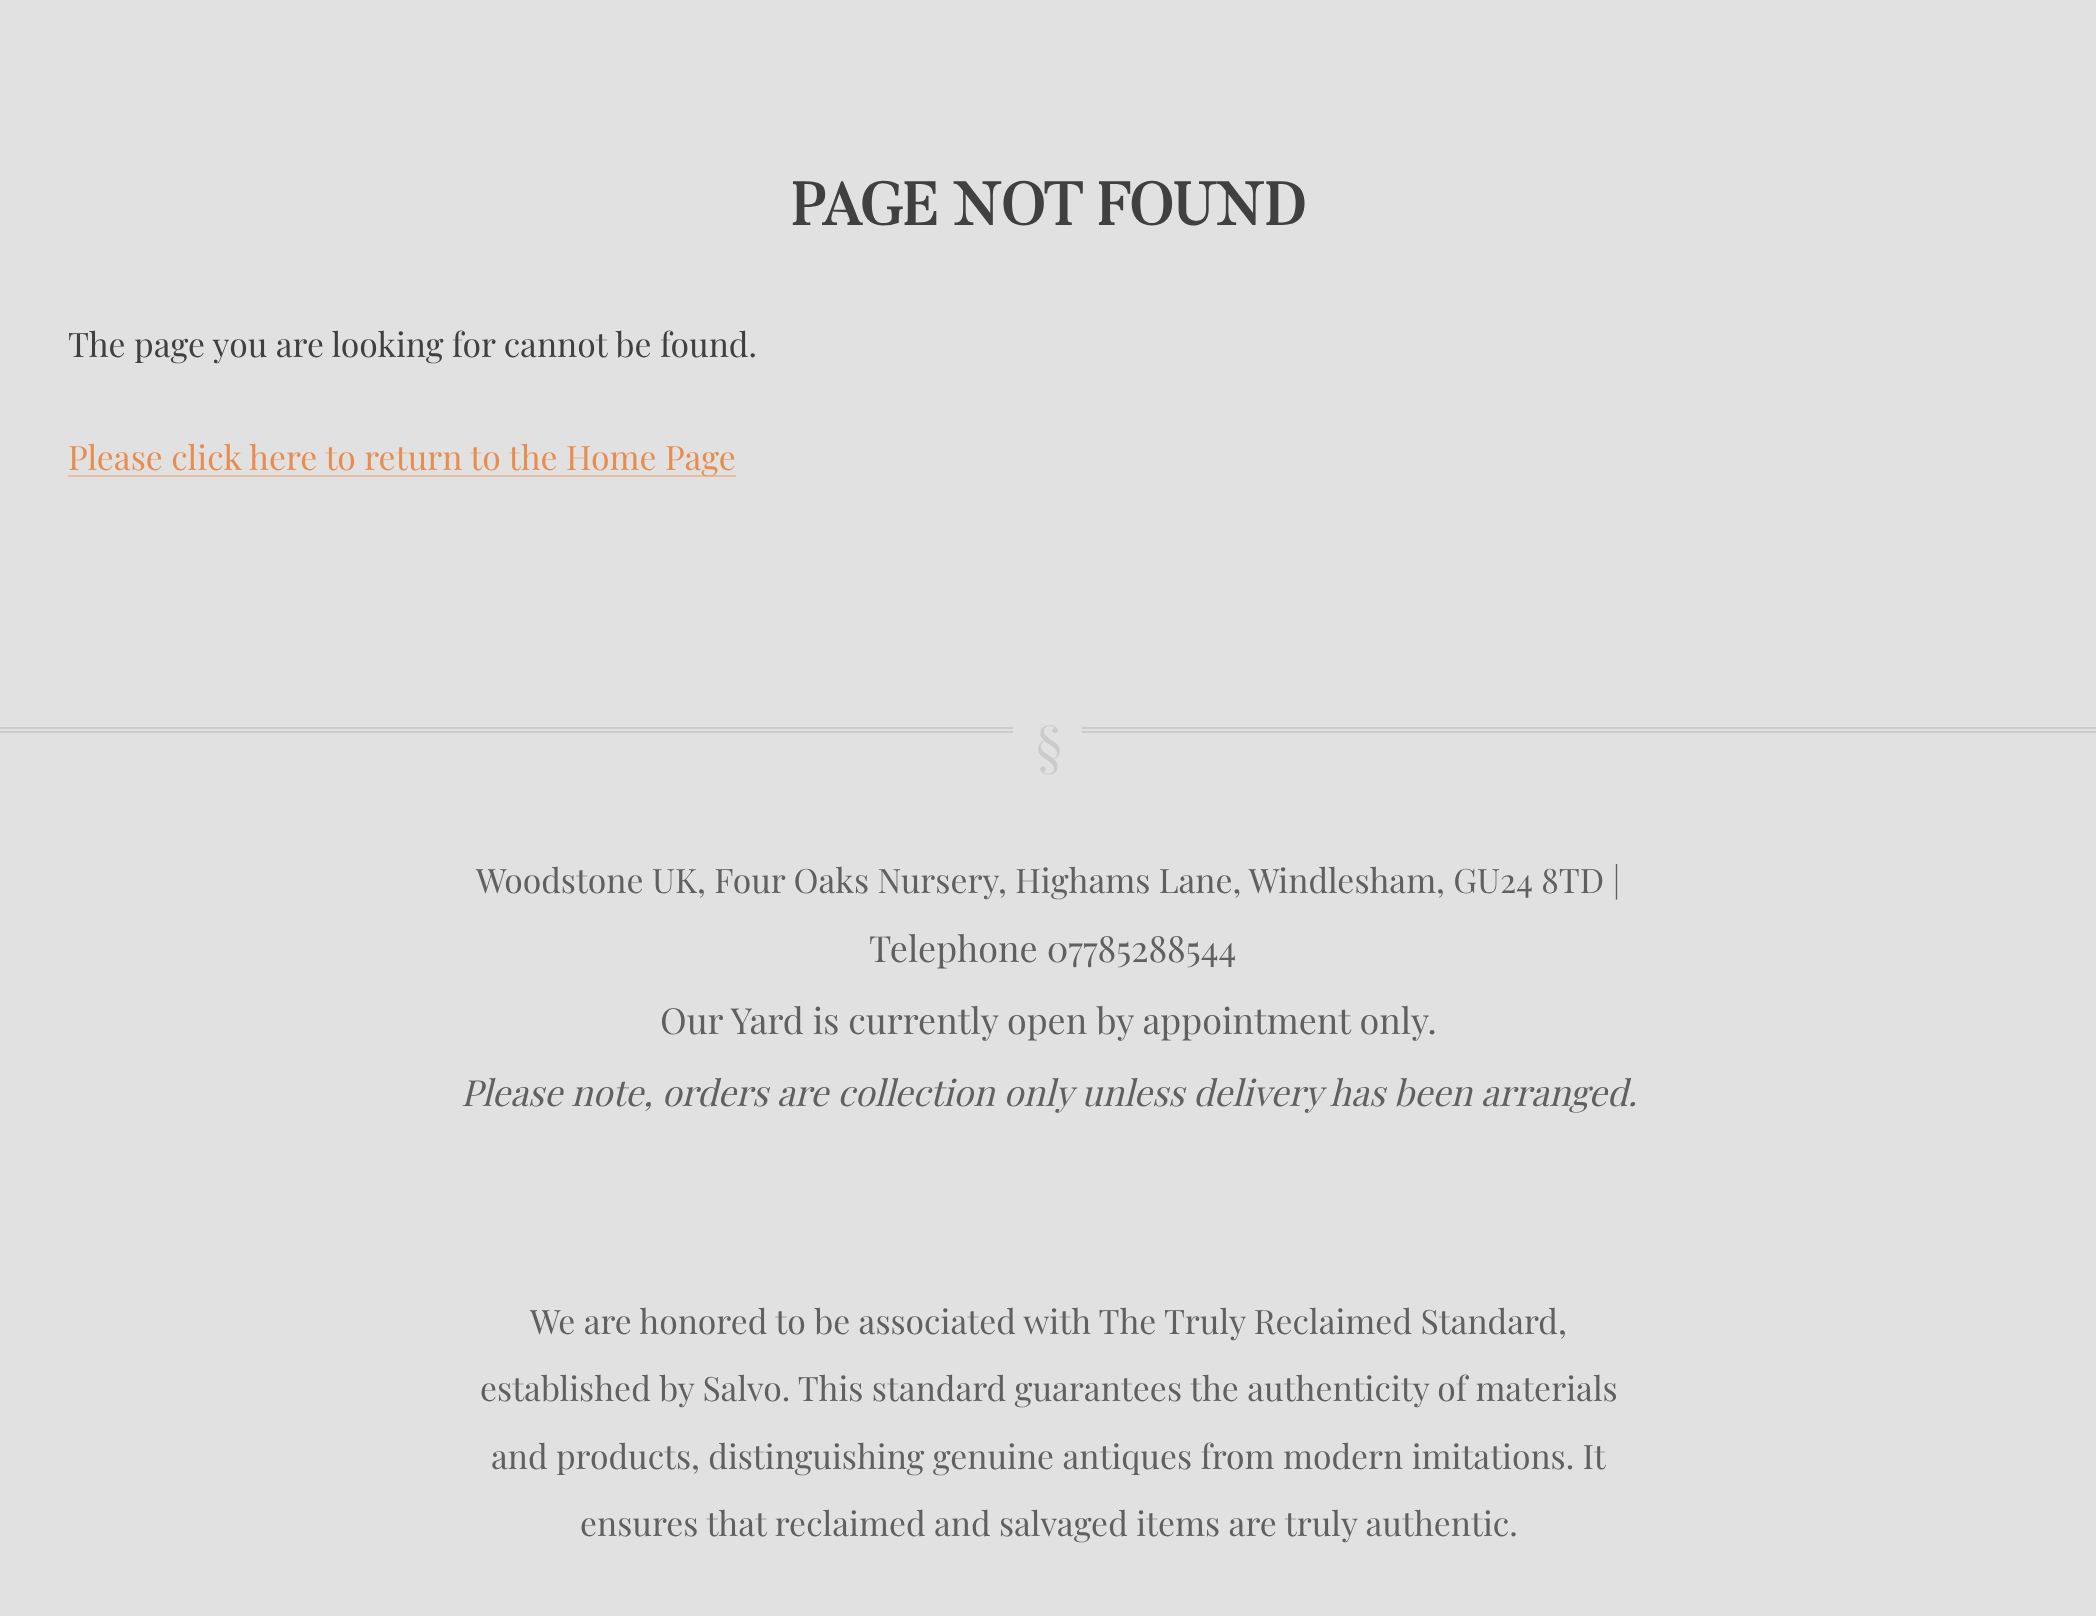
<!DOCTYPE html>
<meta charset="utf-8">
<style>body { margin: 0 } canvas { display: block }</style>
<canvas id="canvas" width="2096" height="1616"></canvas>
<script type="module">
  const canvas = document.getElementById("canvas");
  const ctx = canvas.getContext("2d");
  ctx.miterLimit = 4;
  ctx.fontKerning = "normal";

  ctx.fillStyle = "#e1e1e1";
  ctx.fillRect(0, 0, 2096, 1616);
  ctx.font = "bold 59.5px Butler";
  ctx.fillStyle = "#404040";
  ctx.fillText("PAGE NOT FOUND", 791, 225);
  ctx.font = "33.75px Playfair Display";
  ctx.fillText("The page you are looking for cannot be found.", 68, 357);
  ctx.fillStyle = "#e4bfa7";
  ctx.fillRect(68, 475, 668, 2);
  ctx.fillStyle = "#e88d50";
  ctx.fillText("Please click here to return to the Home Page", 68, 470);
  ctx.fillStyle = "#cbcbcb";
  ctx.fillRect(0, 727, 2096, 2);
  ctx.fillRect(0, 731, 2096, 2);
  ctx.fillStyle = "#e1e1e1";
  ctx.fillRect(1013, 727, 69, 6);
  ctx.font = "51px Playfair Display";
  ctx.fillStyle = "#cbcbcb";
  ctx.fillText("§", 1036, 765);
  ctx.font = "33.75px Playfair Display";
  ctx.fillStyle = "#606060";
  ctx.fillText("Woodstone UK, Four Oaks Nursery, Highams Lane, Windlesham, GU24 8TD |", 476, 893);
  ctx.font = "36px Playfair Display";
  ctx.fillText("Telephone 07785288544", 869, 962);
  ctx.fillText("Our Yard is currently open by appointment only.", 660, 1034);
  ctx.font = "italic 36px Playfair Display";
  ctx.fillText("Please note, orders are collection only unless delivery has been arranged.", 461, 1106);
  ctx.font = "33.75px Playfair Display";
  ctx.fillText("We are honored to be associated with The Truly Reclaimed Standard,", 530, 1334);
  ctx.fillText("established by Salvo. This standard guarantees the authenticity of materials", 480, 1401);
  ctx.fillText("and products, distinguishing genuine antiques from modern imitations. It", 491, 1469);
  ctx.fillText("ensures that reclaimed and salvaged items are truly authentic.", 580, 1536);
</script>
